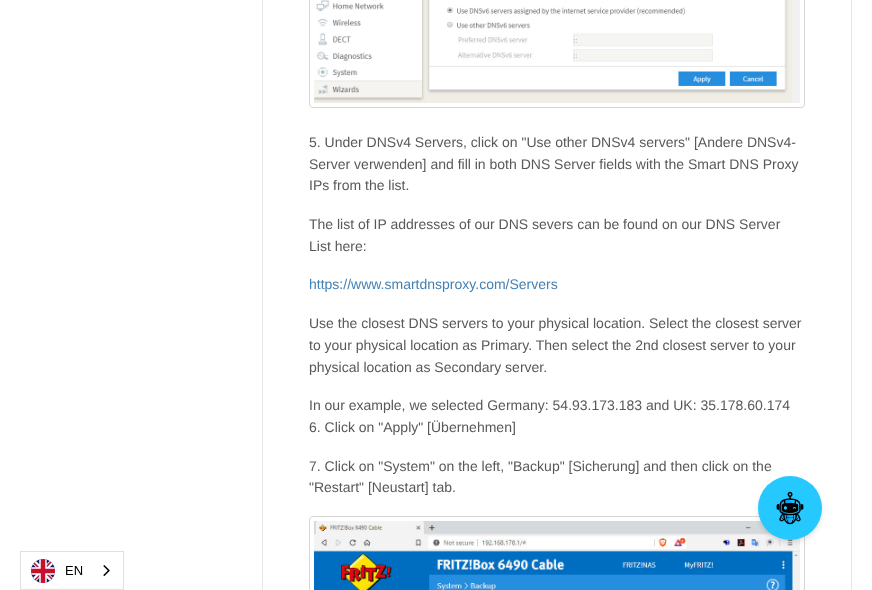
<!DOCTYPE html>
<meta charset="utf-8">
<style>body { margin: 0 } canvas { display: block }</style>
<canvas id="canvas" width="872" height="590"></canvas>
<script type="module">
  const canvas = document.getElementById("canvas");
  const ctx = canvas.getContext("2d");
  ctx.miterLimit = 4;
  ctx.fontKerning = "normal";
  async function loadImage(src) {
    const img = new Image();
    img.src = src;
    await img.decode();
    return img;
  }

  ctx.fillStyle = "#ffffff";
  ctx.fillRect(0, 0, 872, 590);
  ctx.strokeStyle = "#e9e5e5";
  ctx.strokeRect(262.5, -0.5, 589, 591);
  ctx.beginPath();
  ctx.roundRect(309.5, -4.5, 495, 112, 3.5);
  ctx.strokeStyle = "#d6d6d6";
  ctx.stroke();
  ctx.drawImage(await loadImage("img1.png"), 314, 0, 486, 103);
  ctx.font = "14px Liberation Sans";
  ctx.fillStyle = "#585858";
  ctx.fillText("5. Under DNSv4 Servers, click on \"Use other DNSv4 servers\" [Andere DNSv4-", 309, 147);
  ctx.fillText("Server verwenden] and fill in both DNS Server fields with the Smart DNS Proxy", 309, 169);
  ctx.fillText("IPs from the list.", 309, 190);
  ctx.fillText("The list of IP addresses of our DNS severs can be found on our DNS Server", 309, 229);
  ctx.fillText("List here:", 309, 251);
  ctx.fillStyle = "#4381b5";
  ctx.fillText("https://www.smartdnsproxy.com/Servers", 309, 289);
  ctx.fillStyle = "#585858";
  ctx.fillText("Use the closest DNS servers to your physical location. Select the closest server", 309, 328);
  ctx.fillText("to your physical location as Primary. Then select the 2nd closest server to your", 309, 350);
  ctx.fillText("physical location as Secondary server.", 309, 372);
  ctx.fillText("In our example, we selected Germany: 54.93.173.183 and UK: 35.178.60.174", 309, 410);
  ctx.fillText("6. Click on \"Apply\" [Übernehmen]", 309, 432);
  ctx.fillText("7. Click on \"System\" on the left, \"Backup\" [Sicherung] and then click on the", 309, 471);
  ctx.fillText("\"Restart\" [Neustart] tab.", 309, 492);
  ctx.beginPath();
  ctx.roundRect(309.5, 516.5, 495, 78, 3.5);
  ctx.stroke();
  ctx.drawImage(await loadImage("img2.png"), 314, 521, 486, 69);
  ctx.fillStyle = "rgba(0, 0, 0, 0.1)";
  ctx.filter = "blur(2px)";
  ctx.beginPath();
  ctx.roundRect(760, 480, 60, 60, 30);
  ctx.fill();
  ctx.filter = "none";
  ctx.filter = "blur(3px)";
  ctx.beginPath();
  ctx.roundRect(759, 481, 62, 62, 31);
  ctx.fill();
  ctx.filter = "none";
  ctx.fillStyle = "#25c8ff";
  ctx.beginPath();
  ctx.arc(790, 508, 32, 0, Math.PI * 2);
  ctx.fill();
  ctx.drawImage(await loadImage("img3.png"), 776, 491, 28, 34);
  ctx.strokeStyle = "#e0e0e0";
  ctx.strokeRect(20.5, 551.5, 103, 38);
  ctx.drawImage(await loadImage("img4.png"), 31, 559, 24, 24);
  ctx.font = "13px Liberation Sans";
  ctx.fillStyle = "#000000";
  ctx.fillText("EN", 65, 575);
  ctx.drawImage(await loadImage("img5.png"), 103, 565, 7, 11);
</script>
